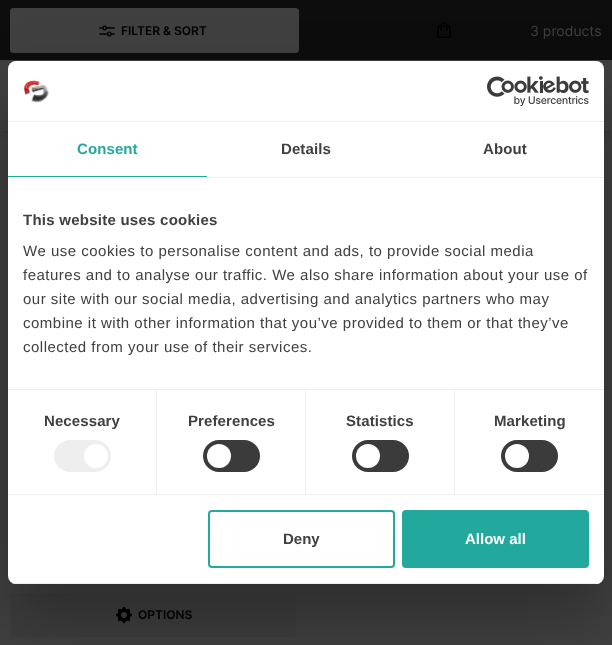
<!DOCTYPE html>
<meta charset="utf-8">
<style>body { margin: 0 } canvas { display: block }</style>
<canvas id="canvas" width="612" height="645"></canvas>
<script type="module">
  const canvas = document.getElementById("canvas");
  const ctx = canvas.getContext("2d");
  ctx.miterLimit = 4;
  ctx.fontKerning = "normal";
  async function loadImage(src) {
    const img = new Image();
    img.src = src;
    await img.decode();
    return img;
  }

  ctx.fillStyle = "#404040";
  ctx.fillRect(0, 0, 612, 645);
  ctx.fillStyle = "#0d0d0d";
  ctx.fillRect(0, 0, 612, 60);
  ctx.fillStyle = "#404040";
  ctx.beginPath();
  ctx.roundRect(10.5, 8.5, 288, 44, 2.5);
  ctx.fill();
  ctx.strokeStyle = "#404040";
  ctx.stroke();
  ctx.drawImage(await loadImage("img1.png"), 99, 25, 16, 12);
  ctx.font = "600 12px Inter";
  ctx.fillStyle = "#000000";
  ctx.fillText("FILTER & SORT", 121, 35);
  ctx.font = "14px Inter";
  ctx.fillStyle = "#404040";
  ctx.fillText("3 products", 530, 36);
  ctx.drawImage(await loadImage("img2.png"), 436, 22, 16, 16);
  ctx.fillStyle = "#3d3d3d";
  ctx.beginPath();
  ctx.roundRect(10, 593, 286, 44, 4);
  ctx.fill();
  ctx.drawImage(await loadImage("img3.png"), 116, 607, 16, 16);
  ctx.font = "600 12px Inter";
  ctx.fillStyle = "#000000";
  ctx.fillText("OPTIONS", 138, 619);
  ctx.filter = "blur(5px)";
  ctx.beginPath();
  ctx.rect(7, 72, 598, 57);
  ctx.fill();
  ctx.filter = "none";
  ctx.fillStyle = "#404040";
  ctx.fillRect(0, 63, 612, 68);
  ctx.fillStyle = "rgba(0, 0, 0, 0.3)";
  ctx.filter = "blur(34px)";
  ctx.beginPath();
  ctx.roundRect(8, 93, 596, 523, 8);
  ctx.fill();
  ctx.filter = "none";
  ctx.fillStyle = "#ffffff";
  ctx.beginPath();
  ctx.roundRect(8, 61, 596, 523, 8);
  ctx.fill();
  ctx.fillStyle = "#eeeeee";
  ctx.fillRect(8, 121, 596, 1);
  ctx.drawImage(await loadImage("img4.png"), 24, 80, 25, 23);
  ctx.drawImage(await loadImage("img5.png"), 487, 76, 102, 30);
  ctx.fillRect(8, 177, 596, 1);
  ctx.fillStyle = "#22a89c";
  ctx.fillRect(8, 176, 199, 1);
  ctx.letterSpacing = "0.1px";
  ctx.font = "bold 15px Liberation Sans";
  ctx.fillText("Consent", 77, 154);
  ctx.fillStyle = "#404040";
  ctx.fillText("Details", 281, 154);
  ctx.fillText("About", 483, 154);
  ctx.fillStyle = "#eeeeee";
  ctx.fillRect(8, 389, 596, 1);
  ctx.letterSpacing = "0.25px";
  ctx.fillStyle = "#404040";
  ctx.fillText("This website uses cookies", 23, 225);
  ctx.letterSpacing = "0.5px";
  ctx.font = "15px Liberation Sans";
  ctx.fillText("We use cookies to personalise content and ads, to provide social media", 23, 256);
  ctx.fillText("features and to analyse our traffic. We also share information about your use of", 23, 280);
  ctx.fillText("our site with our social media, advertising and analytics partners who may", 23, 304);
  ctx.fillText("combine it with other information that you’ve provided to them or that they’ve", 23, 328);
  ctx.fillText("collected from your use of their services.", 23, 352);
  ctx.fillStyle = "#eeeeee";
  ctx.fillRect(8, 494, 596, 1);
  ctx.fillRect(156, 390, 1, 104);
  ctx.letterSpacing = "0.1px";
  ctx.font = "bold 15px Liberation Sans";
  ctx.fillStyle = "#404040";
  ctx.fillText("Necessary", 44, 426);
  ctx.fillStyle = "#eeeeee";
  ctx.beginPath();
  ctx.roundRect(54, 440, 57, 32, 16);
  ctx.fill();
  ctx.fillStyle = "#ffffff";
  ctx.beginPath();
  ctx.arc(96, 456, 12, 0, Math.PI * 2);
  ctx.fill();
  ctx.fillStyle = "#eeeeee";
  ctx.fillRect(305, 390, 1, 104);
  ctx.fillStyle = "#404040";
  ctx.fillText("Preferences", 188, 426);
  ctx.fillStyle = "#3b3b3b";
  ctx.beginPath();
  ctx.roundRect(203, 440, 57, 32, 16);
  ctx.fill();
  ctx.fillStyle = "#ffffff";
  ctx.beginPath();
  ctx.arc(219, 456, 12, 0, Math.PI * 2);
  ctx.fill();
  ctx.fillStyle = "#eeeeee";
  ctx.fillRect(454, 390, 1, 104);
  ctx.fillStyle = "#404040";
  ctx.fillText("Statistics", 346, 426);
  ctx.fillStyle = "#3b3b3b";
  ctx.beginPath();
  ctx.roundRect(352, 440, 57, 32, 16);
  ctx.fill();
  ctx.fillStyle = "#ffffff";
  ctx.beginPath();
  ctx.arc(368, 456, 12, 0, Math.PI * 2);
  ctx.fill();
  ctx.fillStyle = "#404040";
  ctx.fillText("Marketing", 494, 426);
  ctx.fillStyle = "#3b3b3b";
  ctx.beginPath();
  ctx.roundRect(501, 440, 57, 32, 16);
  ctx.fill();
  ctx.fillStyle = "#ffffff";
  ctx.beginPath();
  ctx.arc(517, 456, 12, 0, Math.PI * 2);
  ctx.fill();
  ctx.save();
  ctx.beginPath();
  ctx.roundRect(8, 61, 596, 523, 8);
  ctx.clip();
  ctx.fillStyle = "#eeeeee";
  ctx.fillRect(8, 583, 596, 1);
  ctx.restore();
  ctx.beginPath();
  ctx.roundRect(209, 511, 185, 56, 3);
  ctx.strokeStyle = "#22a89c";
  ctx.lineWidth = 2;
  ctx.stroke();
  ctx.letterSpacing = "0px";
  ctx.fillStyle = "#404040";
  ctx.fillText("Deny", 283, 544);
  ctx.fillStyle = "#22a89c";
  ctx.beginPath();
  ctx.roundRect(403, 511, 185, 56, 3);
  ctx.fill();
  ctx.stroke();
  ctx.fillStyle = "#ffffff";
  ctx.fillText("Allow all", 465, 544);
</script>
